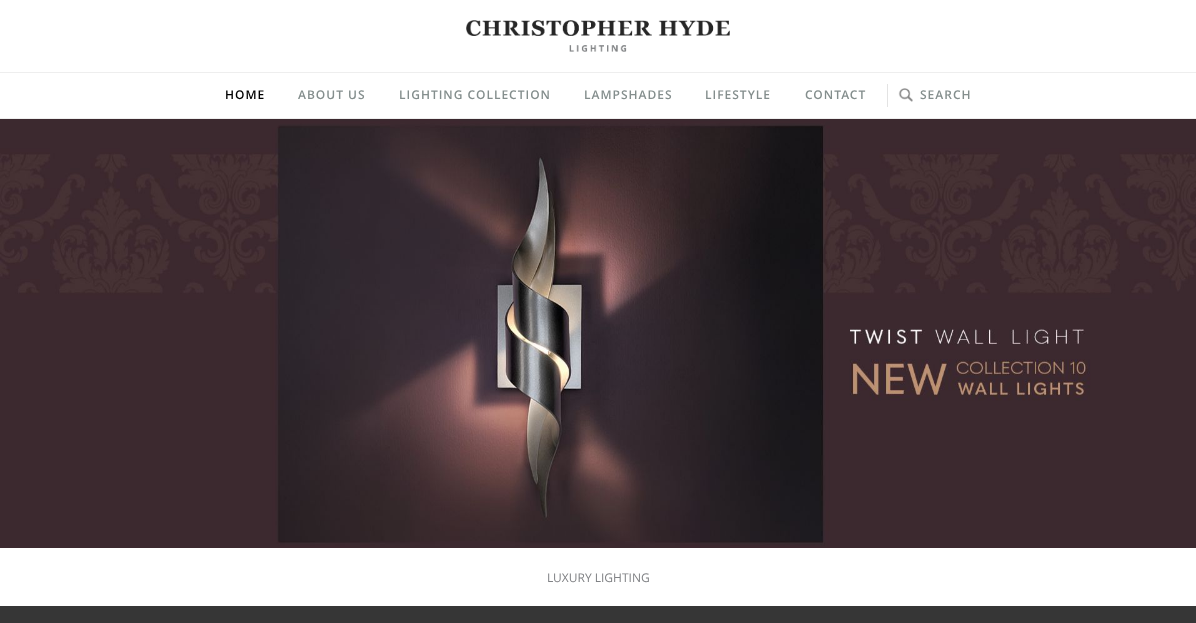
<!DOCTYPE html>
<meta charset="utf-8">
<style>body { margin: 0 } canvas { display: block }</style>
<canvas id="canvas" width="1196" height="623"></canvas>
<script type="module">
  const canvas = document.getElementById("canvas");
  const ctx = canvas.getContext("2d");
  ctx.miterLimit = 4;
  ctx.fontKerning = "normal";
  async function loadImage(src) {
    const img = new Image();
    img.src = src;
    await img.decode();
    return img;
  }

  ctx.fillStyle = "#363636";
  ctx.fillRect(0, 0, 1196, 623);
  ctx.fillStyle = "#ffffff";
  ctx.fillRect(0, 0, 1196, 118);
  ctx.drawImage(await loadImage("img1.png"), 466, 20, 264, 32);
  ctx.fillStyle = "#eeeeee";
  ctx.fillRect(0, 72, 1196, 1);
  ctx.fillRect(0, 118, 1196, 1);
  ctx.letterSpacing = "1px";
  ctx.font = "600 12px Open Sans";
  ctx.fillStyle = "#000000";
  ctx.fillText("HOME", 225, 99);
  ctx.fillStyle = "#848e8d";
  ctx.fillText("ABOUT US", 298, 99);
  ctx.fillText("LIGHTING COLLECTION", 399, 99);
  ctx.fillText("LAMPSHADES", 584, 99);
  ctx.fillText("LIFESTYLE", 705, 99);
  ctx.fillText("CONTACT", 805, 99);
  ctx.fillStyle = "#e3e3e3";
  ctx.fillRect(887, 84, 1, 23);
  ctx.drawImage(await loadImage("img2.png"), 898, 88, 15, 14);
  ctx.fillStyle = "#848e8d";
  ctx.fillText("SEARCH", 920, 99);
  ctx.drawImage(await loadImage("img3.png"), 0, 119, 1196, 429);
  ctx.fillStyle = "#ffffff";
  ctx.fillRect(0, 548, 1196, 58);
  ctx.letterSpacing = "0px";
  ctx.font = "12px Open Sans";
  ctx.fillStyle = "#808285";
  ctx.fillText("LUXURY LIGHTING", 547, 582);
</script>
